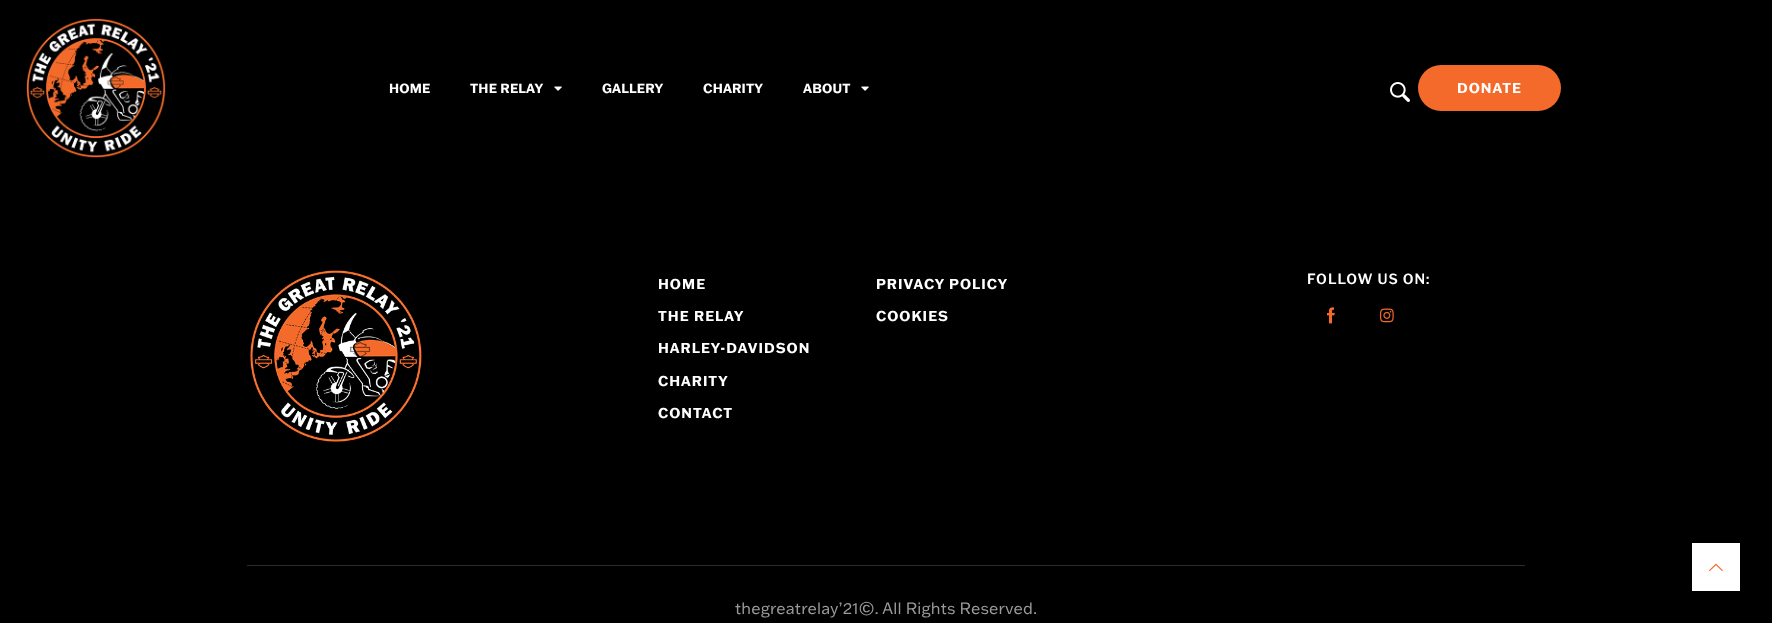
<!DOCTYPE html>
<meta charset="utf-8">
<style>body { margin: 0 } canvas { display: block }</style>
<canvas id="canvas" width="1772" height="623"></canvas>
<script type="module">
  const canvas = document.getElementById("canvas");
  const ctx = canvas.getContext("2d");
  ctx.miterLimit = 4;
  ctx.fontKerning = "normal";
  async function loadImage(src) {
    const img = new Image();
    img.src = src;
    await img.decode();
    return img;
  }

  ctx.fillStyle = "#000000";
  ctx.fillRect(0, 0, 1772, 623);
  ctx.drawImage(await loadImage("img1.png"), 26, 18, 140, 140);
  ctx.letterSpacing = "0.15px";
  ctx.font = "bold 13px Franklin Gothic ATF";
  ctx.fillStyle = "#ffffff";
  ctx.fillText("HOME", 389, 93);
  ctx.fillText("THE RELAY", 470, 93);
  ctx.drawImage(await loadImage("img2.png"), 554, 86, 8, 5);
  ctx.fillText("GALLERY", 602, 93);
  ctx.fillText("CHARITY", 703, 93);
  ctx.fillText("ABOUT", 803, 93);
  ctx.drawImage(await loadImage("img2.png"), 861, 86, 8, 5);
  ctx.drawImage(await loadImage("img3.png"), 1390, 82, 20, 20);
  ctx.fillStyle = "#f36a2b";
  ctx.beginPath();
  ctx.roundRect(1418, 65, 143, 46, 23);
  ctx.fill();
  ctx.letterSpacing = "1px";
  ctx.font = "bold 14px Franklin Gothic ATF";
  ctx.fillStyle = "#ffffff";
  ctx.fillText("DONATE", 1457, 93);
  ctx.drawImage(await loadImage("img4.png"), 250, 270, 172, 172);
  ctx.fillText("HOME", 658, 289);
  ctx.fillText("THE RELAY", 658, 321);
  ctx.fillText("HARLEY-DAVIDSON", 658, 353);
  ctx.fillText("CHARITY", 658, 386);
  ctx.fillText("CONTACT", 658, 418);
  ctx.fillText("PRIVACY POLICY", 876, 289);
  ctx.fillText("COOKIES", 876, 321);
  ctx.font = "600 14px Libre Franklin";
  ctx.fillText("FOLLOW US ON:", 1307, 284);
  ctx.drawImage(await loadImage("img5.png"), 1327, 307, 8, 17);
  ctx.drawImage(await loadImage("img6.png"), 1380, 308, 14, 15);
  ctx.fillStyle = "#2c2c2c";
  ctx.fillRect(247, 565, 1278, 1);
  ctx.letterSpacing = "0.15px";
  ctx.font = "16px Franklin Gothic ATF";
  ctx.fillStyle = "#9a9a9a";
  ctx.fillText("thegreatrelay’21©. All Rights Reserved.", 735, 614);
  ctx.fillStyle = "#ffffff";
  ctx.fillRect(1692, 543, 48, 48);
  ctx.drawImage(await loadImage("img7.png"), 1709, 563, 14, 8);
</script>
